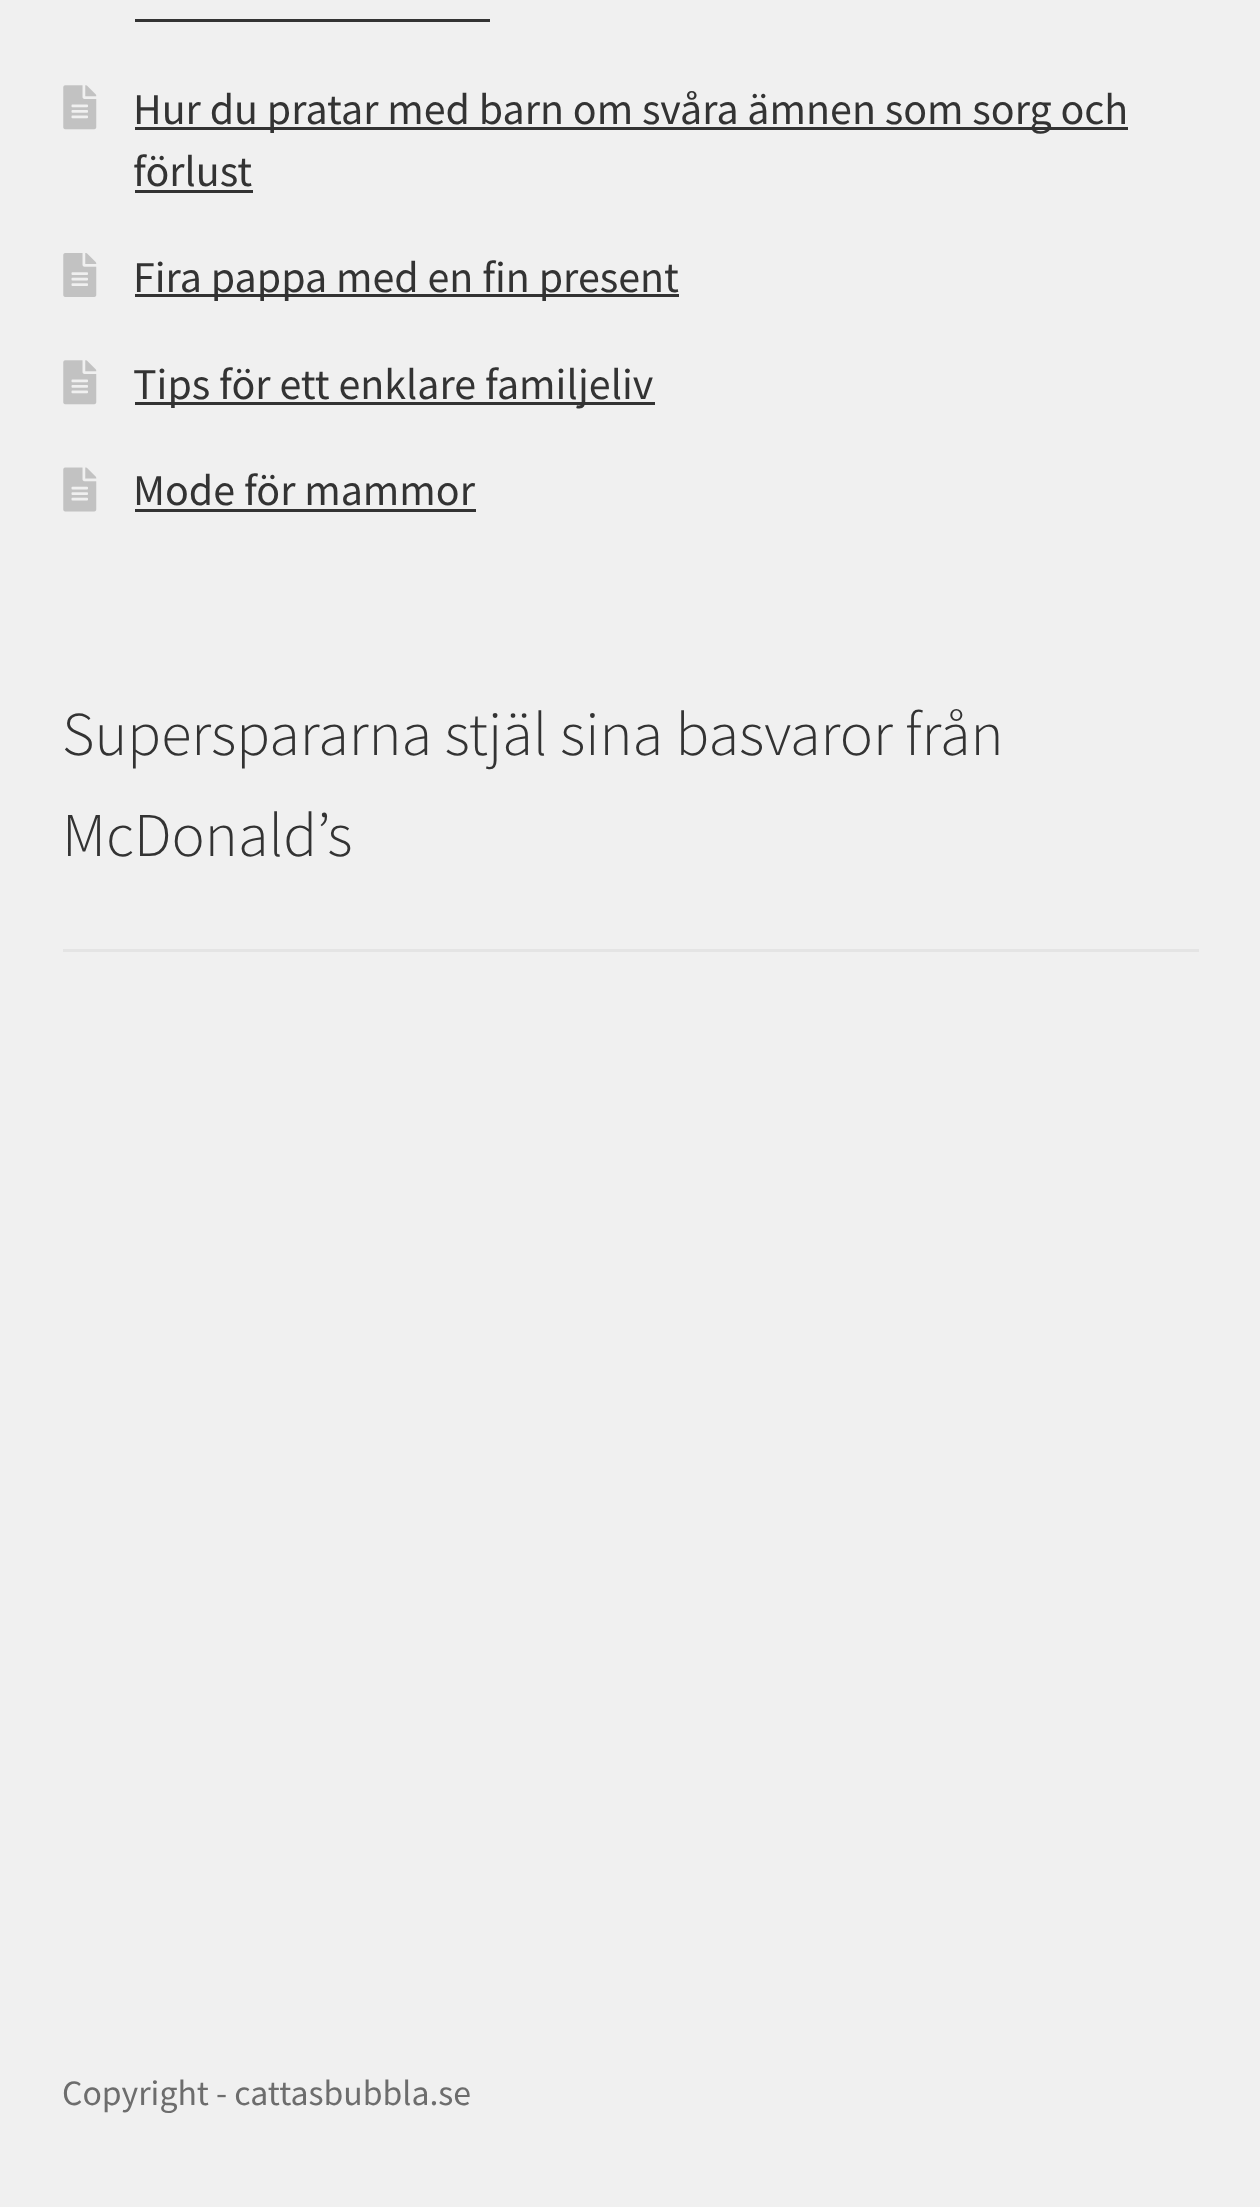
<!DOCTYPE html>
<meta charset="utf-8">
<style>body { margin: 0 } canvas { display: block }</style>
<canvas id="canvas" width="1260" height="2207"></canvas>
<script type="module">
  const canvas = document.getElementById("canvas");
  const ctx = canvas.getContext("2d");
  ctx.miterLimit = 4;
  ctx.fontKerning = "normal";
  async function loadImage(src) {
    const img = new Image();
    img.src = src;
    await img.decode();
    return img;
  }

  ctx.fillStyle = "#f0f0f0";
  ctx.fillRect(0, 0, 1260, 2207);
  ctx.fillStyle = "#333333";
  ctx.fillRect(135, 19, 355, 3);
  ctx.drawImage(await loadImage("img1.png"), 63, 85, 34, 45);
  ctx.fillRect(135, 127, 993, 3);
  ctx.font = "44px Source Sans Pro";
  ctx.fillText("Hur du pratar med barn om svåra ämnen som sorg och", 133, 124);
  ctx.fillText("förlust", 133, 186);
  ctx.fillRect(135, 190, 118, 3);
  ctx.drawImage(await loadImage("img2.png"), 63, 253, 34, 44);
  ctx.fillRect(135, 294, 544, 3);
  ctx.fillText("Fira pappa med en fin present", 133, 292);
  ctx.drawImage(await loadImage("img1.png"), 63, 360, 34, 45);
  ctx.fillRect(135, 402, 520, 3);
  ctx.fillText("Tips för ett enklare familjeliv", 133, 399);
  ctx.drawImage(await loadImage("img3.png"), 63, 467, 34, 45);
  ctx.fillText("Mode för mammor", 133, 505);
  ctx.fillRect(135, 509, 341, 3);
  ctx.fillStyle = "#e4e4e4";
  ctx.fillRect(63, 949, 1136, 3);
  ctx.font = "300 62.25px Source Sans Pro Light";
  ctx.fillStyle = "#333333";
  ctx.fillText("Superspararna stjäl sina basvaror från", 62, 755);
  ctx.fillText("McDonald’s", 62, 856);
  ctx.font = "35.75px Source Sans Pro";
  ctx.fillStyle = "#6d6d6d";
  ctx.fillText("Copyright - cattasbubbla.se", 62, 2105);
</script>
